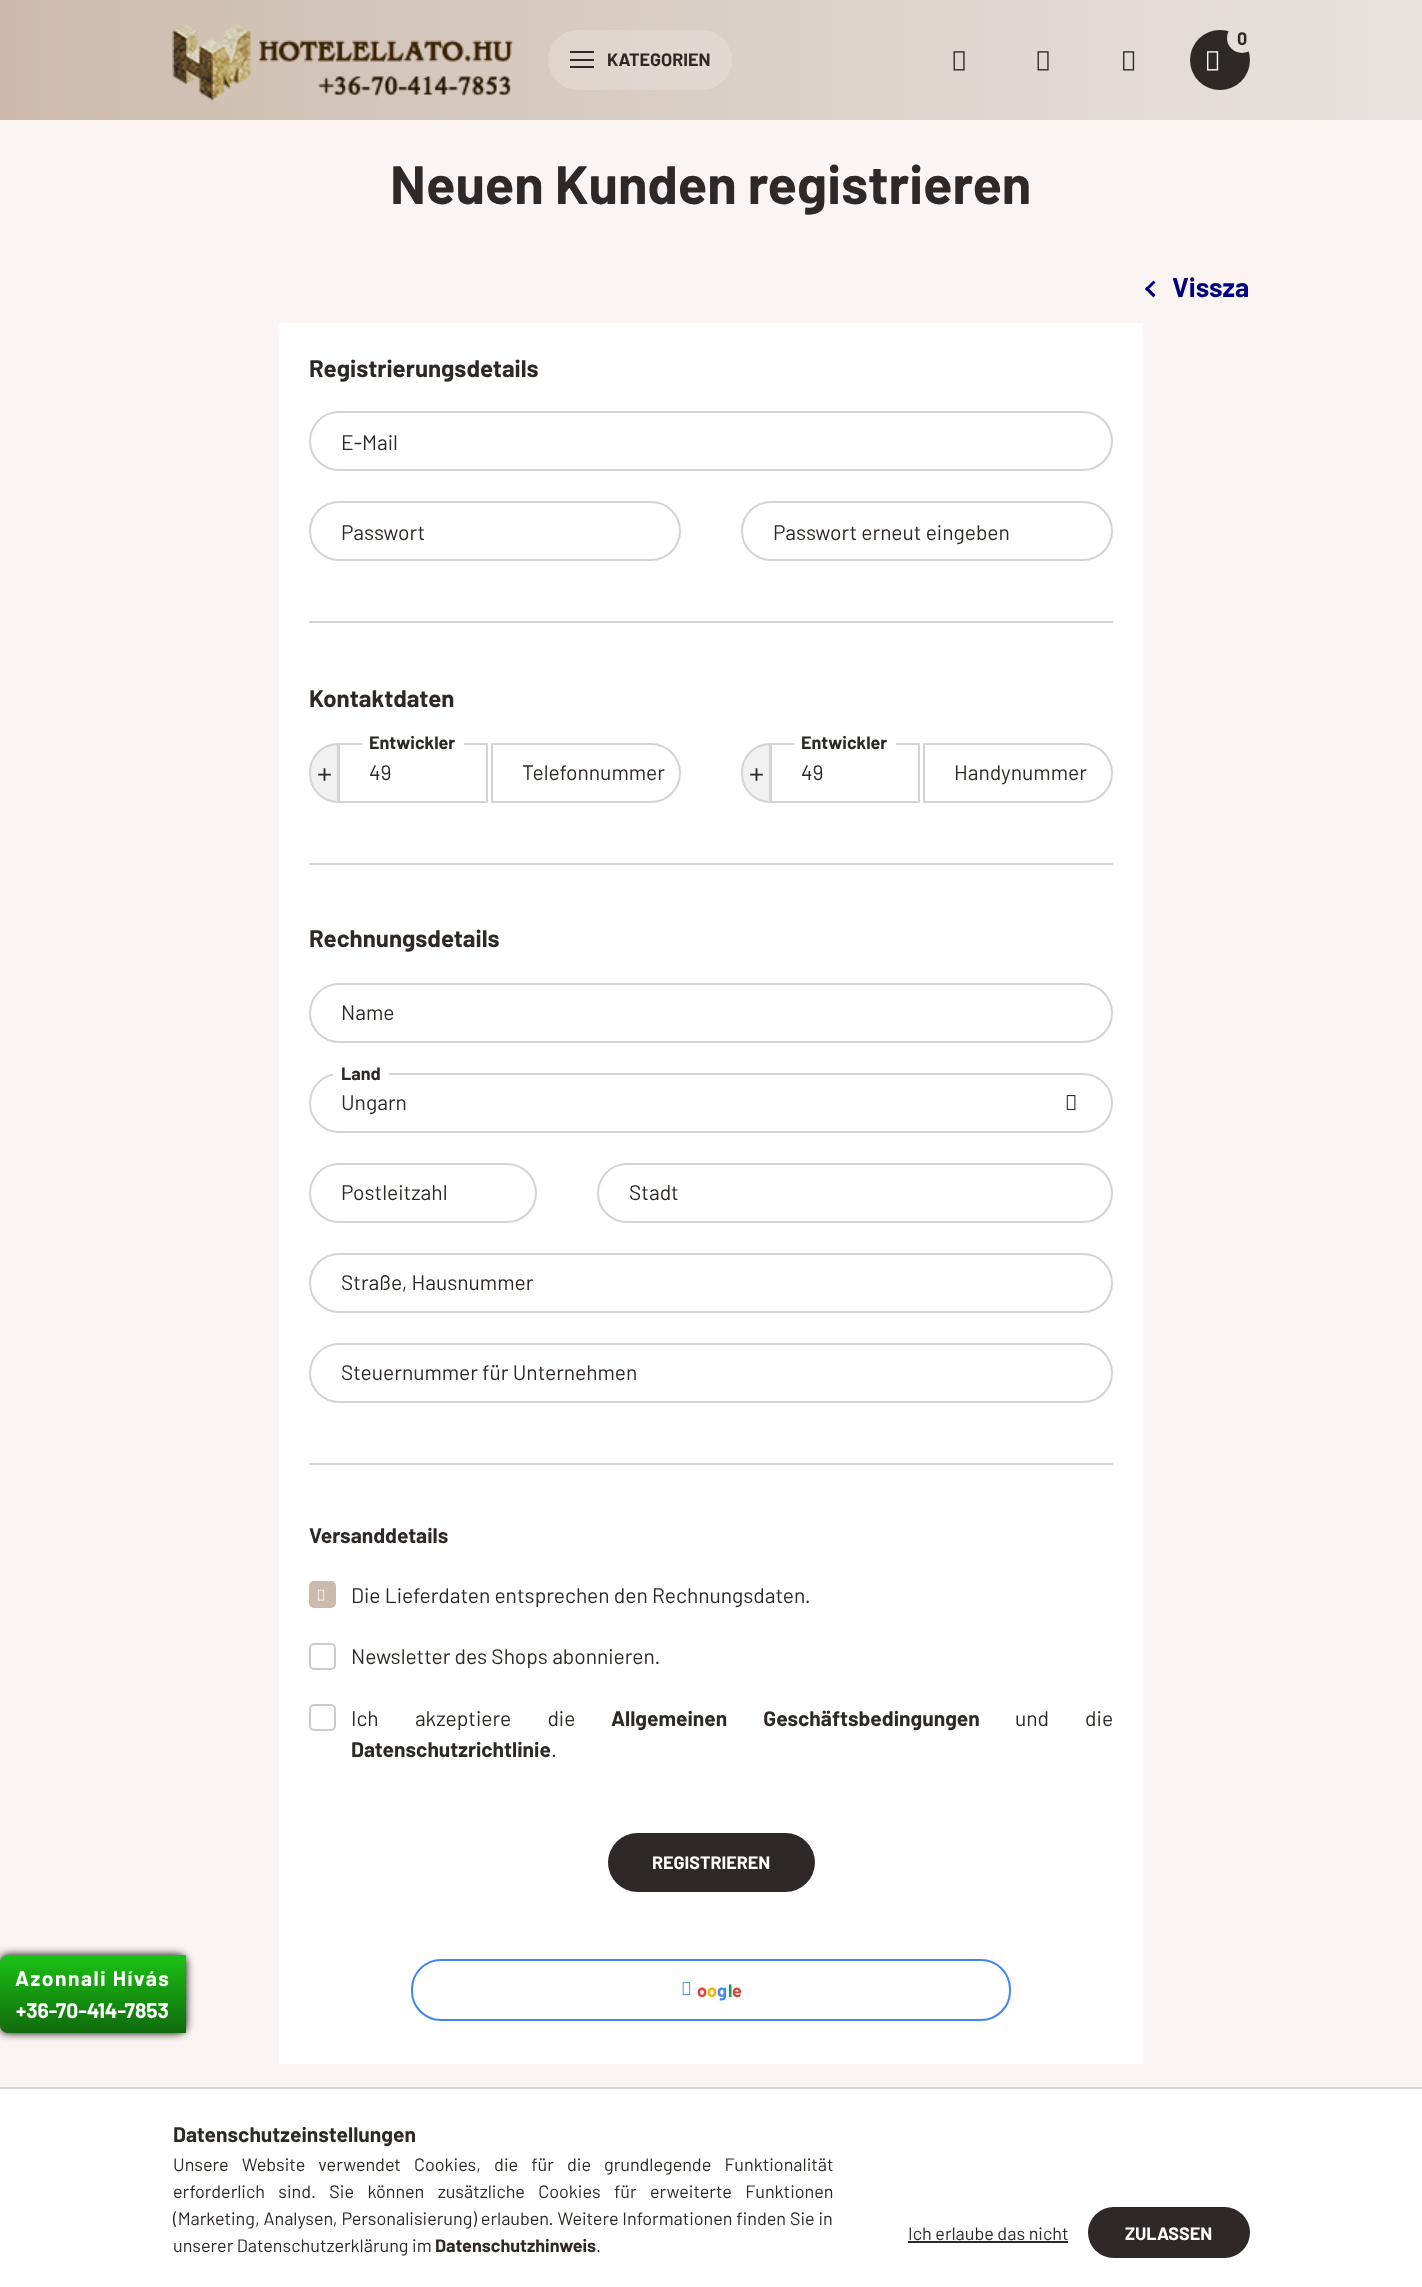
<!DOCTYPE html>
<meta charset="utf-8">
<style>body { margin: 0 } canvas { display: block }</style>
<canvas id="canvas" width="1422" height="2287"></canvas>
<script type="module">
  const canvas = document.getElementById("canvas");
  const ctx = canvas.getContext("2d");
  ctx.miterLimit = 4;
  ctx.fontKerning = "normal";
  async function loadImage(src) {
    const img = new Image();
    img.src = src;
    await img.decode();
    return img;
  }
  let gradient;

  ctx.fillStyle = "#faf5f2";
  ctx.fillRect(0, 0, 1422, 2287);
  ctx.fillStyle = "#000000";
  ctx.filter = "blur(4px)";
  ctx.beginPath();
  ctx.roundRect(0, 1955, 186, 78, 8);
  ctx.fill();
  ctx.filter = "none";
  gradient = ctx.createLinearGradient(93, 1955, 93, 2033);
  gradient.addColorStop(0, "#1bc214");
  gradient.addColorStop(1, "#106a0c");
  ctx.fillStyle = gradient;
  ctx.beginPath();
  ctx.roundRect(0, 1955, 186, 78, [8, 0, 0, 8]);
  ctx.fill();
  ctx.letterSpacing = "1.5px";
  ctx.font = "bold 21px Barlow";
  ctx.fillStyle = "#ffffff";
  ctx.fillText("Azonnali Hívás", 15, 1986);
  ctx.letterSpacing = "0px";
  ctx.fillText("+36-70-414-7853", 16, 2018);
  gradient = ctx.createLinearGradient(0, 1144, 1422, 1144);
  gradient.addColorStop(0, "#ccbbad");
  gradient.addColorStop(1, "#e8e3df");
  ctx.fillStyle = gradient;
  ctx.fillRect(0, 0, 1422, 120);
  ctx.fillStyle = "#2e2926";
  ctx.beginPath();
  ctx.arc(1220, 60, 30, 0, Math.PI * 2);
  ctx.fill();
  gradient = ctx.createLinearGradient(0, 1144, 1422, 1144);
  gradient.addColorStop(0, "#ccbbad");
  gradient.addColorStop(1, "#e8e3df");
  ctx.fillStyle = gradient;
  ctx.beginPath();
  ctx.arc(1242, 38, 15, 0, Math.PI * 2);
  ctx.fill();
  ctx.font = "bold 18px Barlow";
  ctx.fillStyle = "#2e2926";
  ctx.fillText("0", 1237, 45);
  ctx.drawImage(await loadImage("img1.png"), 1207, 51, 12, 20);
  ctx.drawImage(await loadImage("img2.png"), 953, 51, 12, 20);
  ctx.drawImage(await loadImage("img3.png"), 1037, 51, 12, 20);
  ctx.drawImage(await loadImage("img4.png"), 1123, 51, 12, 20);
  ctx.drawImage(await loadImage("img5.png"), 172, 23, 342, 79);
  ctx.fillStyle = "rgba(255, 255, 255, 0.2)";
  ctx.beginPath();
  ctx.roundRect(548, 30, 184, 60, 30);
  ctx.fill();
  ctx.fillStyle = "#2e2926";
  ctx.fillRect(570, 51, 24, 2);
  ctx.fillRect(570, 59, 24, 2);
  ctx.fillRect(570, 66, 24, 2);
  ctx.fillText("KATEGORIEN", 607, 66);
  ctx.font = "bold 54px Barlow";
  ctx.fillText("Neuen Kunden registrieren", 390, 204);
  ctx.fillStyle = "#000080";
  ctx.beginPath();
  ctx.moveTo(1145, 289);
  ctx.lineTo(1153.5, 280.5);
  ctx.lineTo(1155.5, 282.5);
  ctx.lineTo(1147, 291);
  ctx.closePath();
  ctx.fill();
  ctx.beginPath();
  ctx.moveTo(1147, 286.5);
  ctx.lineTo(1155.5, 295);
  ctx.lineTo(1153.5, 297.5);
  ctx.lineTo(1145, 289);
  ctx.closePath();
  ctx.fill();
  ctx.font = "bold 27px Barlow";
  ctx.fillText("Vissza", 1172, 297);
  ctx.fillStyle = "#ffffff";
  ctx.fillRect(279, 323, 864, 1741);
  ctx.fillStyle = "#d5d4d4";
  ctx.fillRect(309, 621, 804, 2);
  ctx.font = "bold 24px Barlow";
  ctx.fillStyle = "#2e2926";
  ctx.fillText("Registrierungsdetails", 309, 377);
  ctx.beginPath();
  ctx.roundRect(310, 412, 802, 58, 29);
  ctx.strokeStyle = "#d5d4d4";
  ctx.lineWidth = 2;
  ctx.stroke();
  ctx.font = "21px Barlow";
  ctx.fillText("E-Mail", 341, 450);
  ctx.beginPath();
  ctx.roundRect(310, 502, 370, 58, 29);
  ctx.stroke();
  ctx.fillText("Passwort", 341, 540);
  ctx.beginPath();
  ctx.roundRect(742, 502, 370, 58, 29);
  ctx.stroke();
  ctx.fillText("Passwort erneut eingeben", 773, 540);
  ctx.fillStyle = "#d5d4d4";
  ctx.fillRect(309, 863, 804, 2);
  ctx.font = "bold 24px Barlow";
  ctx.fillStyle = "#2e2926";
  ctx.fillText("Kontaktdaten", 309, 707);
  ctx.fillStyle = "#f1f1f1";
  ctx.beginPath();
  ctx.roundRect(310, 744, 28, 58, [29, 0, 0, 29]);
  ctx.fill();
  ctx.stroke();
  ctx.strokeRect(339, 744, 148, 58);
  ctx.fillStyle = "#ffffff";
  ctx.fillRect(362, 743, 102, 2);
  ctx.font = "bold 18px Barlow";
  ctx.fillStyle = "#2e2926";
  ctx.fillText("Entwickler", 369, 749);
  ctx.beginPath();
  ctx.roundRect(492, 744, 188, 58, [0, 29, 29, 0]);
  ctx.stroke();
  ctx.font = "30px Barlow";
  ctx.fillText("+", 317, 784);
  ctx.font = "21px Barlow";
  ctx.fillText("49", 369, 780);
  ctx.fillText("Telefonnummer", 522, 780);
  ctx.fillStyle = "#f1f1f1";
  ctx.beginPath();
  ctx.roundRect(742, 744, 28, 58, [29, 0, 0, 29]);
  ctx.fill();
  ctx.stroke();
  ctx.strokeRect(771, 744, 148, 58);
  ctx.fillStyle = "#ffffff";
  ctx.fillRect(794, 743, 102, 2);
  ctx.font = "bold 18px Barlow";
  ctx.fillStyle = "#2e2926";
  ctx.fillText("Entwickler", 801, 749);
  ctx.beginPath();
  ctx.roundRect(924, 744, 188, 58, [0, 29, 29, 0]);
  ctx.stroke();
  ctx.font = "30px Barlow";
  ctx.fillText("+", 749, 784);
  ctx.font = "21px Barlow";
  ctx.fillText("49", 801, 780);
  ctx.fillText("Handynummer", 954, 780);
  ctx.fillStyle = "#d5d4d4";
  ctx.fillRect(309, 1463, 804, 2);
  ctx.font = "bold 24px Barlow";
  ctx.fillStyle = "#2e2926";
  ctx.fillText("Rechnungsdetails", 309, 947);
  ctx.beginPath();
  ctx.roundRect(310, 984, 802, 58, 29);
  ctx.stroke();
  ctx.font = "21px Barlow";
  ctx.fillText("Name", 341, 1020);
  ctx.beginPath();
  ctx.roundRect(310, 1074, 802, 58, 29);
  ctx.stroke();
  ctx.fillStyle = "#ffffff";
  ctx.beginPath();
  ctx.roundRect(333, 1059, 56, 27, [9, 9, 0, 0]);
  ctx.fill();
  ctx.font = "bold 18px Barlow";
  ctx.fillStyle = "#2e2926";
  ctx.fillText("Land", 341, 1080);
  ctx.font = "21px Barlow";
  ctx.fillText("Ungarn", 341, 1110);
  ctx.drawImage(await loadImage("img6.png"), 1066, 1095, 10, 15);
  ctx.beginPath();
  ctx.roundRect(310, 1164, 226, 58, 29);
  ctx.stroke();
  ctx.fillText("Postleitzahl", 341, 1200);
  ctx.beginPath();
  ctx.roundRect(598, 1164, 514, 58, 29);
  ctx.stroke();
  ctx.fillText("Stadt", 629, 1200);
  ctx.beginPath();
  ctx.roundRect(310, 1254, 802, 58, 29);
  ctx.stroke();
  ctx.fillText("Straße, Hausnummer", 341, 1290);
  ctx.beginPath();
  ctx.roundRect(310, 1344, 802, 58, 29);
  ctx.stroke();
  ctx.fillText("Steuernummer für Unternehmen", 341, 1380);
  ctx.font = "bold 21px Barlow";
  ctx.fillText("Versanddetails", 309, 1543);
  ctx.fillStyle = "#ccbbad";
  ctx.beginPath();
  ctx.roundRect(310, 1582, 25, 25, 4);
  ctx.fill();
  ctx.strokeStyle = "#ccbbad";
  ctx.stroke();
  ctx.drawImage(await loadImage("img7.png"), 317, 1589, 8, 12);
  ctx.font = "21px Barlow";
  ctx.fillStyle = "#2e2926";
  ctx.fillText("Die Lieferdaten entsprechen den Rechnungsdaten.", 351, 1603);
  ctx.beginPath();
  ctx.roundRect(310, 1644, 25, 25, 4);
  ctx.strokeStyle = "#cccccc";
  ctx.stroke();
  ctx.fillText("Newsletter des Shops abonnieren.", 351, 1664);
  ctx.beginPath();
  ctx.roundRect(310, 1705, 25, 25, 4);
  ctx.stroke();
  ctx.wordSpacing = "32px";
  ctx.fillText("Ich akzeptiere die", 351, 1726);
  ctx.font = "bold 21px Barlow";
  ctx.fillText("Allgemeinen Geschäftsbedingungen", 611, 1726);
  ctx.font = "21px Barlow";
  ctx.fillText("und die", 1015, 1726);
  ctx.wordSpacing = "0px";
  ctx.font = "bold 21px Barlow";
  ctx.fillText("Datenschutzrichtlinie", 351, 1757);
  ctx.font = "21px Barlow";
  ctx.fillText(".", 551, 1757);
  gradient = ctx.createLinearGradient(608, 1862, 1229, 1862);
  gradient.addColorStop(0.33, "#2e2926");
  gradient.addColorStop(0.67, "#ccbbad");
  ctx.fillStyle = gradient;
  ctx.beginPath();
  ctx.roundRect(608, 1833, 207, 59, 29.5);
  ctx.fill();
  ctx.font = "bold 18px Barlow";
  ctx.fillStyle = "#ffffff";
  ctx.fillText("REGISTRIEREN", 652, 1869);
  ctx.beginPath();
  ctx.roundRect(412, 1960, 598, 60, 29);
  ctx.strokeStyle = "#4285f4";
  ctx.stroke();
  ctx.drawImage(await loadImage("img8.png"), 682, 1982, 9, 13);
  ctx.fillStyle = "#db4437";
  ctx.fillText("o", 697, 1997);
  ctx.fillStyle = "#f4b400";
  ctx.fillText("o", 707, 1997);
  ctx.fillStyle = "#4285f4";
  ctx.fillText("g", 717, 1997);
  ctx.fillStyle = "#0f9d58";
  ctx.fillText("l", 728, 1997);
  ctx.fillStyle = "#db4437";
  ctx.fillText("e", 732, 1997);
  ctx.fillStyle = "#ffffff";
  ctx.fillRect(0, 2089, 1422, 198);
  ctx.fillStyle = "#d5d4d4";
  ctx.fillRect(0, 2087, 1422, 2);
  ctx.font = "bold 21px Barlow";
  ctx.fillStyle = "#2e2926";
  ctx.fillText("Datenschutzeinstellungen", 173, 2142);
  ctx.wordSpacing = "9.5px";
  ctx.font = "18px Barlow";
  ctx.fillText("Unsere Website verwendet Cookies, die für die grundlegende Funktionalität", 173, 2171);
  ctx.wordSpacing = "9.75px";
  ctx.fillText("erforderlich sind. Sie können zusätzliche Cookies für erweiterte Funktionen", 173, 2198);
  ctx.wordSpacing = "0.25px";
  ctx.fillText("(Marketing, Analysen, Personalisierung) erlauben. Weitere Informationen finden Sie in", 173, 2225);
  ctx.wordSpacing = "0px";
  ctx.fillText("unserer Datenschutzerklärung im", 173, 2252);
  ctx.font = "bold 18px Barlow";
  ctx.fillText("Datenschutzhinweis", 435, 2252);
  ctx.font = "18px Barlow";
  ctx.fillText(".", 596, 2252);
  ctx.fillText("Ich erlaube das nicht", 908, 2240);
  ctx.fillRect(908, 2241, 160, 2);
  gradient = ctx.createLinearGradient(1088, 2232, 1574, 2232);
  gradient.addColorStop(0.33, "#2e2926");
  gradient.addColorStop(0.67, "#ccbbad");
  ctx.fillStyle = gradient;
  ctx.beginPath();
  ctx.roundRect(1088, 2207, 162, 51, 25.5);
  ctx.fill();
  ctx.font = "bold 18px Barlow";
  ctx.fillStyle = "#ffffff";
  ctx.fillText("ZULASSEN", 1125, 2240);
</script>
